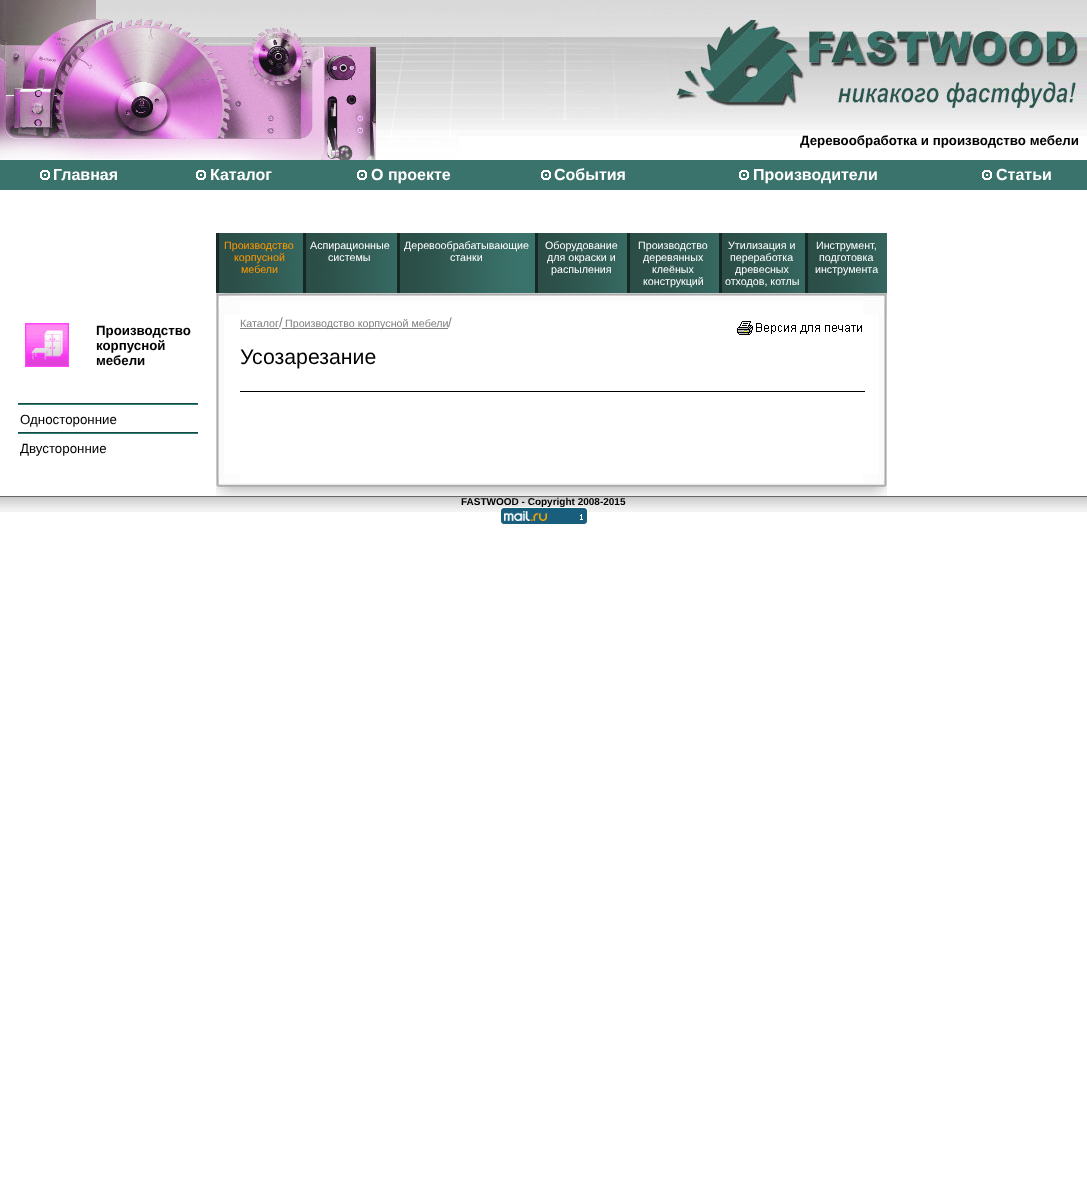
<!DOCTYPE html>
<meta charset="utf-8">
<style>body { margin: 0 } canvas { display: block }</style>
<canvas id="canvas" width="1087" height="1199"></canvas>
<script type="module">
  const canvas = document.getElementById("canvas");
  const ctx = canvas.getContext("2d");
  ctx.miterLimit = 4;
  ctx.fontKerning = "normal";
  async function loadImage(src) {
    const img = new Image();
    img.src = src;
    await img.decode();
    return img;
  }

  ctx.fillStyle = "#ffffff";
  ctx.fillRect(0, 0, 1087, 1199);
  ctx.drawImage(await loadImage("img1.png"), 0, 0, 459, 160);
  ctx.drawImage(await loadImage("img2.png"), 459, 0, 100, 120);
  ctx.drawImage(await loadImage("img3.png"), 559, 0, 528, 120);
  ctx.drawImage(await loadImage("img4.png"), 459, 120, 628, 16);
  ctx.font = "bold 13.3px Liberation Sans";
  ctx.fillStyle = "#000000";
  ctx.fillText("Деревообработка и производство мебели", 800, 145);
  ctx.fillStyle = "#3a736b";
  ctx.fillRect(0, 160, 1087, 30);
  ctx.drawImage(await loadImage("img5.png"), 40, 170, 10, 10);
  ctx.font = "bold 16px Liberation Sans";
  ctx.fillStyle = "#ffffff";
  ctx.fillText("Главная", 53, 180);
  ctx.drawImage(await loadImage("img5.png"), 196, 170, 10, 10);
  ctx.fillText("Каталог", 210, 180);
  ctx.drawImage(await loadImage("img5.png"), 357, 170, 10, 10);
  ctx.fillText("О проекте", 371, 180);
  ctx.drawImage(await loadImage("img5.png"), 541, 170, 10, 10);
  ctx.fillText("События", 554, 180);
  ctx.drawImage(await loadImage("img5.png"), 739, 170, 10, 10);
  ctx.fillText("Производители", 753, 180);
  ctx.drawImage(await loadImage("img5.png"), 982, 170, 10, 10);
  ctx.fillText("Статьи", 996, 180);
  ctx.drawImage(await loadImage("img6.png"), 216, 233, 87, 60);
  ctx.font = "10.7px Liberation Sans";
  ctx.fillStyle = "#ff9900";
  ctx.fillText("Производство", 224, 249);
  ctx.fillText("корпусной", 234, 261);
  ctx.fillText("мебели", 241, 273);
  ctx.drawImage(await loadImage("img7.png"), 303, 233, 94, 60);
  ctx.fillStyle = "#ffffff";
  ctx.fillText("Аспирационные", 310, 249);
  ctx.fillText("системы", 328, 261);
  ctx.drawImage(await loadImage("img8.png"), 397, 233, 138, 60);
  ctx.fillText("Деревообрабатывающие", 404, 249);
  ctx.fillText("станки", 450, 261);
  ctx.drawImage(await loadImage("img9.png"), 535, 233, 92, 60);
  ctx.fillText("Оборудование", 545, 249);
  ctx.fillText("для окраски и", 547, 261);
  ctx.fillText("распыления", 551, 273);
  ctx.drawImage(await loadImage("img10.png"), 627, 233, 92, 60);
  ctx.fillText("Производство", 638, 249);
  ctx.fillText("деревянных", 643, 261);
  ctx.fillText("клеёных", 652, 273);
  ctx.fillText("конструкций", 643, 285);
  ctx.drawImage(await loadImage("img11.png"), 719, 233, 86, 60);
  ctx.fillText("Утилизация и", 728, 249);
  ctx.fillText("переработка", 730, 261);
  ctx.fillText("древесных", 735, 273);
  ctx.fillText("отходов, котлы", 725, 285);
  ctx.drawImage(await loadImage("img12.png"), 805, 233, 82, 60);
  ctx.fillText("Инструмент,", 816, 249);
  ctx.fillText("подготовка", 819, 261);
  ctx.fillText("инструмента", 815, 273);
  ctx.drawImage(await loadImage("img13.png"), 25, 323, 44, 44);
  ctx.font = "bold 13.3px Liberation Sans";
  ctx.fillStyle = "#000000";
  ctx.fillText("Производство", 96, 335);
  ctx.fillText("корпусной", 96, 350);
  ctx.fillText("мебели", 96, 365);
  ctx.drawImage(await loadImage("img14.png"), 18, 403, 180, 2);
  ctx.font = "13.3px Liberation Sans";
  ctx.fillText("Односторонние", 20, 424);
  ctx.drawImage(await loadImage("img14.png"), 18, 432, 180, 2);
  ctx.fillText("Двусторонние", 20, 453);
  ctx.drawImage(await loadImage("img15.png"), 216, 293, 24, 22);
  ctx.drawImage(await loadImage("img16.png"), 240, 293, 623, 8);
  ctx.drawImage(await loadImage("img17.png"), 863, 293, 24, 22);
  ctx.drawImage(await loadImage("img18.png"), 216, 315, 8, 159);
  ctx.font = "10.7px Liberation Sans";
  ctx.fillStyle = "#808080";
  ctx.fillText("Каталог", 240, 327);
  ctx.fillRect(240, 328, 39, 1);
  ctx.font = "13.3px Liberation Sans";
  ctx.fillText("/", 279, 327);
  ctx.fillRect(282, 328, 166, 1);
  ctx.font = "10.7px Liberation Sans";
  ctx.fillText("Производство корпусной мебели", 285, 327);
  ctx.font = "13.3px Liberation Sans";
  ctx.fillText("/", 448, 327);
  ctx.font = "21.25px Liberation Sans";
  ctx.fillStyle = "#000000";
  ctx.fillText("Усозарезание", 240, 364);
  ctx.drawImage(await loadImage("img19.png"), 737, 321, 125, 14);
  ctx.fillRect(240, 391, 625, 1);
  ctx.drawImage(await loadImage("img20.png"), 879, 315, 8, 159);
  ctx.drawImage(await loadImage("img21.png"), 216, 474, 24, 22);
  ctx.drawImage(await loadImage("img22.png"), 240, 483, 623, 13);
  ctx.drawImage(await loadImage("img23.png"), 863, 474, 24, 22);
  ctx.drawImage(await loadImage("img24.png"), 0, 496, 1087, 16);
  ctx.font = "bold 10px Liberation Sans";
  ctx.fillText("FASTWOOD - Copyright 2008-2015", 461, 505);
  ctx.drawImage(await loadImage("img25.png"), 500, 507, 88, 17);
</script>
